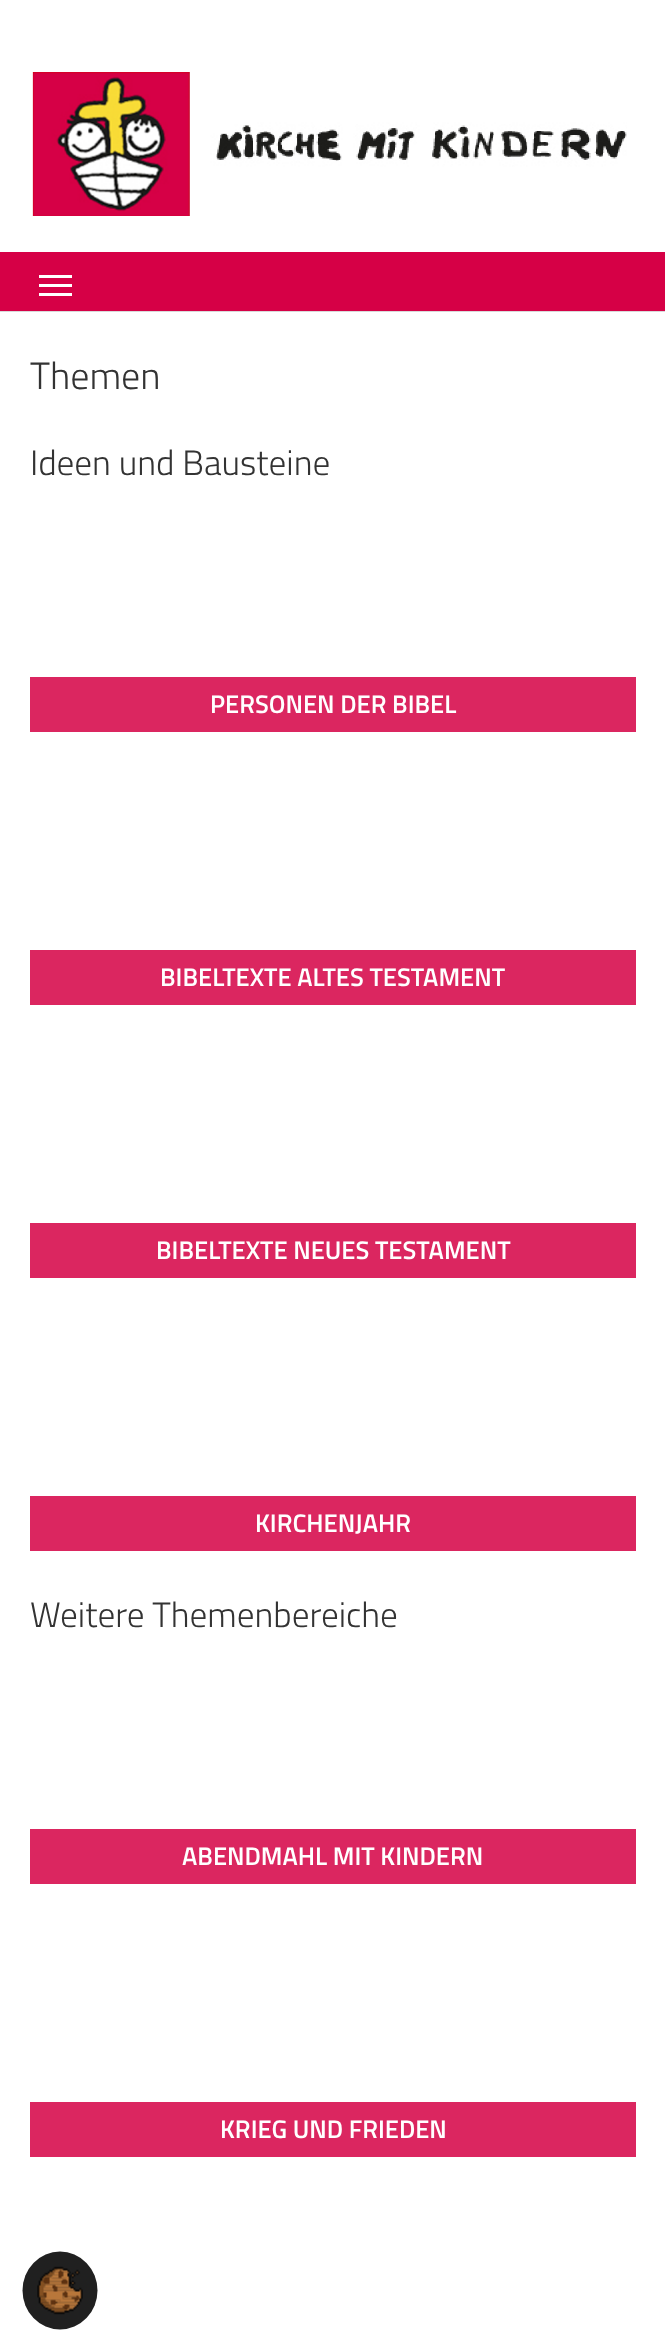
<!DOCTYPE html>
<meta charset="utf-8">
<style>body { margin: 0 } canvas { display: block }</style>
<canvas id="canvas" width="665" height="2351"></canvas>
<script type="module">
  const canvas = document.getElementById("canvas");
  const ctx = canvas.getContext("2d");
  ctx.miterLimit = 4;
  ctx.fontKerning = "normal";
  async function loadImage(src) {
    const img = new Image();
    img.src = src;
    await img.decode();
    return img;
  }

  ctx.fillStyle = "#ffffff";
  ctx.fillRect(0, 0, 665, 2351);
  ctx.drawImage(await loadImage("img1.png"), 32, 72, 595, 144);
  ctx.fillStyle = "#d9d9d9";
  ctx.fillRect(0, 311, 665, 1);
  ctx.fillStyle = "#d60046";
  ctx.fillRect(0, 252, 665, 59);
  ctx.fillStyle = "#ffffff";
  ctx.fillRect(39, 284, 33, 3);
  ctx.fillRect(39, 275, 33, 3);
  ctx.fillRect(39, 293, 33, 3);
  ctx.font = "300 38px Titillium Web";
  ctx.fillStyle = "#333333";
  ctx.fillText("Themen", 30, 389);
  ctx.font = "300 35.25px Titillium Web";
  ctx.fillText("Ideen und Bausteine", 30, 475);
  ctx.fillStyle = "#db2660";
  ctx.fillRect(30, 677, 606, 55);
  ctx.font = "600 25.5px Titillium Web";
  ctx.fillStyle = "#ffffff";
  ctx.fillText("PERSONEN DER BIBEL", 210, 713);
  ctx.fillStyle = "#db2660";
  ctx.fillRect(30, 950, 606, 55);
  ctx.fillStyle = "#ffffff";
  ctx.fillText("BIBELTEXTE ALTES TESTAMENT", 160, 986);
  ctx.fillStyle = "#db2660";
  ctx.fillRect(30, 1223, 606, 55);
  ctx.fillStyle = "#ffffff";
  ctx.fillText("BIBELTEXTE NEUES TESTAMENT", 156, 1259);
  ctx.fillStyle = "#db2660";
  ctx.fillRect(30, 1496, 606, 55);
  ctx.fillStyle = "#ffffff";
  ctx.fillText("KIRCHENJAHR", 255, 1532);
  ctx.font = "300 35.25px Titillium Web";
  ctx.fillStyle = "#333333";
  ctx.fillText("Weitere Themenbereiche", 30, 1627);
  ctx.fillStyle = "#db2660";
  ctx.fillRect(30, 1829, 606, 55);
  ctx.font = "600 25.5px Titillium Web";
  ctx.fillStyle = "#ffffff";
  ctx.fillText("ABENDMAHL MIT KINDERN", 182, 1865);
  ctx.fillStyle = "#db2660";
  ctx.fillRect(30, 2102, 606, 55);
  ctx.fillStyle = "#ffffff";
  ctx.fillText("KRIEG UND FRIEDEN", 220, 2138);
  ctx.fillStyle = "#202020";
  ctx.beginPath();
  ctx.ellipse(60, 2290.5, 37.5, 39, 0, 0, Math.PI * 2);
  ctx.fill();
  ctx.drawImage(await loadImage("img2.png"), 37, 2266, 46, 49);
</script>
